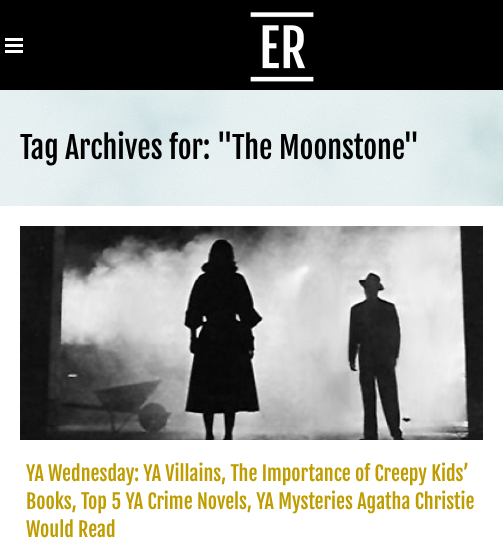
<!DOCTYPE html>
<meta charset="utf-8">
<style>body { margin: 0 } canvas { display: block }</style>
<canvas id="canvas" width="503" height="545"></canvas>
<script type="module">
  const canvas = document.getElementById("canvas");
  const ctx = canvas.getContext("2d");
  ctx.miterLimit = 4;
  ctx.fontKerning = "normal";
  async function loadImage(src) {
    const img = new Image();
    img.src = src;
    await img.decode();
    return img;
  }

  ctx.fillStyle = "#ffffff";
  ctx.fillRect(0, 0, 503, 545);
  ctx.fillStyle = "#000000";
  ctx.fillRect(0, 0, 503, 90);
  ctx.fillStyle = "#ffffff";
  ctx.fillRect(5, 38, 18, 3);
  ctx.fillRect(5, 44, 18, 3);
  ctx.fillRect(5, 50, 18, 3);
  ctx.drawImage(await loadImage("img1.png"), 250, 12, 64, 70);
  ctx.drawImage(await loadImage("img2.png"), 0, 90, 503, 116);
  ctx.font = "30px Fjalla One";
  ctx.fillStyle = "#000000";
  ctx.fillText("Tag Archives for: \"The Moonstone\"", 20, 159);
  ctx.drawImage(await loadImage("img3.png"), 20, 226, 463, 214);
  ctx.font = "20px Fjalla One";
  ctx.fillStyle = "#bf9c00";
  ctx.fillText("YA Wednesday: YA Villains, The Importance of Creepy Kids’", 26, 481);
  ctx.fillText("Books, Top 5 YA Crime Novels, YA Mysteries Agatha Christie", 26, 509);
  ctx.fillText("Would Read", 26, 537);
</script>
